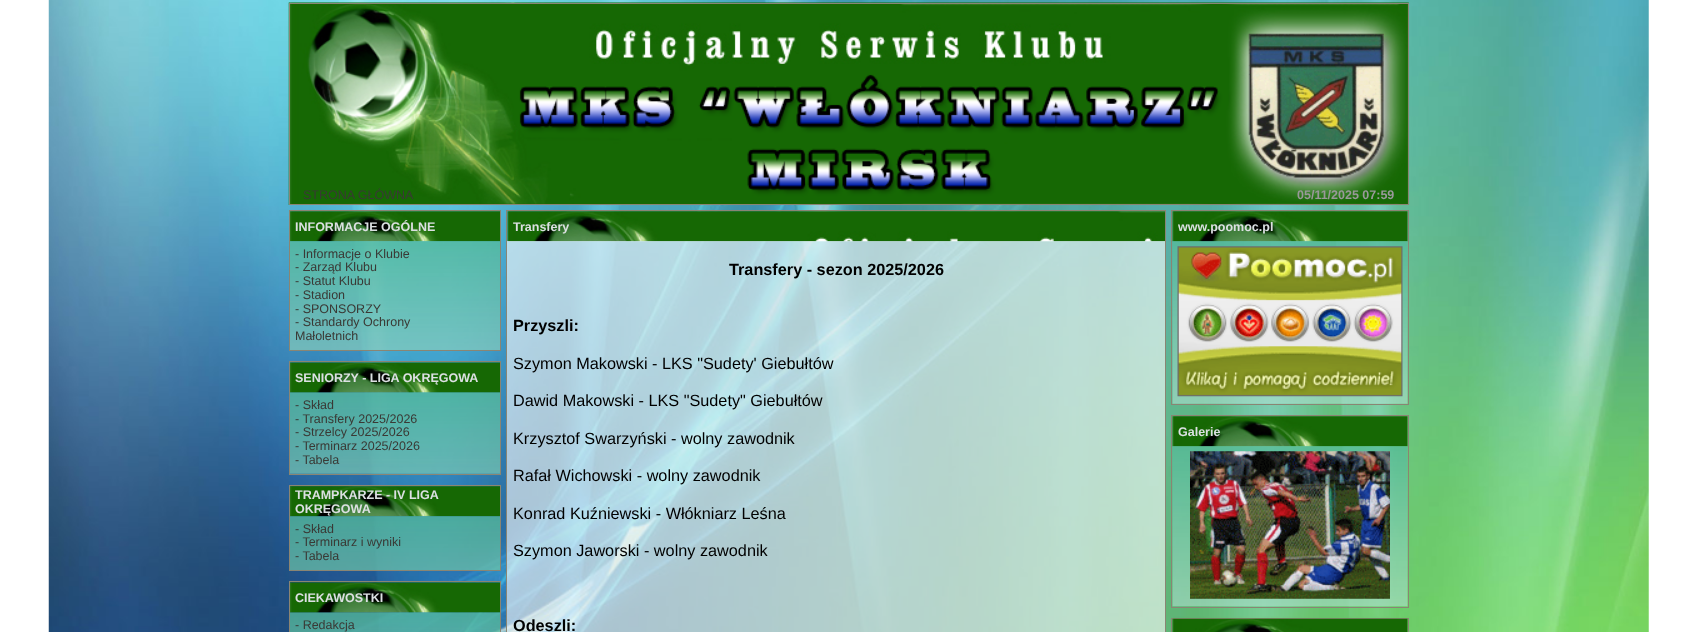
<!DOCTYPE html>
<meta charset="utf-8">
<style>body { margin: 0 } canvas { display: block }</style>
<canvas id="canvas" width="1697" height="632"></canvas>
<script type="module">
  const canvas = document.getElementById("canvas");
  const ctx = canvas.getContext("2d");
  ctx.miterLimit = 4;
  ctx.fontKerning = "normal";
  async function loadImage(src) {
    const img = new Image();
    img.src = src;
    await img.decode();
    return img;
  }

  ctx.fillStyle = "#ffffff";
  ctx.fillRect(0, 0, 1697, 632);
  ctx.drawImage(await loadImage("img1.png"), 48, 0, 1601, 632);
  ctx.drawImage(await loadImage("img2.png"), 288, 2, 1121, 203);
  ctx.strokeStyle = "#8a8573";
  ctx.strokeRect(289.5, 3.5, 1119, 201);
  ctx.font = "12.5px Liberation Sans";
  ctx.fillStyle = "#3a3935";
  ctx.fillText("STRONA GŁÓWNA", 303, 199);
  ctx.font = "bold 12.5px Liberation Sans";
  ctx.fillStyle = "#999999";
  ctx.fillText("05/11/2025 07:59", 1297, 199);
  ctx.strokeRect(289.5, 210.5, 211, 140);
  ctx.drawImage(await loadImage("img3.png"), 290, 211, 210, 31);
  ctx.fillStyle = "#dce0e2";
  ctx.fillText("INFORMACJE OGÓLNE", 295, 231);
  ctx.drawImage(await loadImage("img4.png"), 290, 241, 210, 109);
  ctx.font = "12.5px Liberation Sans";
  ctx.fillStyle = "#3a3935";
  ctx.fillText("- Informacje o Klubie", 295, 258);
  ctx.fillText("- Zarząd Klubu", 295, 271);
  ctx.fillText("- Statut Klubu", 295, 285);
  ctx.fillText("- Stadion", 295, 299);
  ctx.fillText("- SPONSORZY", 295, 313);
  ctx.fillText("- Standardy Ochrony", 295, 326);
  ctx.fillText("Małoletnich", 295, 340);
  ctx.strokeRect(289.5, 361.5, 211, 113);
  ctx.drawImage(await loadImage("img5.png"), 290, 362, 210, 31);
  ctx.font = "bold 12.5px Liberation Sans";
  ctx.fillStyle = "#dce0e2";
  ctx.fillText("SENIORZY - LIGA OKRĘGOWA", 295, 382);
  ctx.drawImage(await loadImage("img6.png"), 290, 392, 210, 82);
  ctx.font = "12.5px Liberation Sans";
  ctx.fillStyle = "#3a3935";
  ctx.fillText("- Skład", 295, 409);
  ctx.fillText("- Transfery 2025/2026", 295, 423);
  ctx.fillText("- Strzelcy 2025/2026", 295, 436);
  ctx.fillText("- Terminarz 2025/2026", 295, 450);
  ctx.fillText("- Tabela", 295, 464);
  ctx.strokeRect(289.5, 485.5, 211, 85);
  ctx.drawImage(await loadImage("img7.png"), 290, 486, 210, 31);
  ctx.font = "bold 12.5px Liberation Sans";
  ctx.fillStyle = "#dce0e2";
  ctx.fillText("TRAMPKARZE - IV LIGA", 295, 499);
  ctx.fillText("OKRĘGOWA", 295, 513);
  ctx.drawImage(await loadImage("img8.png"), 290, 516, 210, 54);
  ctx.font = "12.5px Liberation Sans";
  ctx.fillStyle = "#3a3935";
  ctx.fillText("- Skład", 295, 533);
  ctx.fillText("- Terminarz i wyniki", 295, 546);
  ctx.fillText("- Tabela", 295, 560);
  ctx.strokeRect(289.5, 581.5, 211, 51);
  ctx.drawImage(await loadImage("img9.png"), 290, 582, 210, 31);
  ctx.font = "bold 12.5px Liberation Sans";
  ctx.fillStyle = "#dce0e2";
  ctx.fillText("CIEKAWOSTKI", 295, 602);
  ctx.drawImage(await loadImage("img10.png"), 290, 612, 210, 20);
  ctx.font = "12.5px Liberation Sans";
  ctx.fillStyle = "#3a3935";
  ctx.fillText("- Redakcja", 295, 629);
  ctx.fillStyle = "#8a8573";
  ctx.fillRect(506, 210, 660, 1);
  ctx.fillRect(1165, 210, 1, 422);
  ctx.fillRect(506, 210, 1, 422);
  ctx.drawImage(await loadImage("img11.png"), 507, 211, 658, 31);
  ctx.font = "bold 12.5px Liberation Sans";
  ctx.fillStyle = "#dce0e2";
  ctx.fillText("Transfery", 513, 231);
  ctx.fillStyle = "rgba(255, 255, 255, 0.6)";
  ctx.fillRect(507, 241, 658, 391);
  ctx.font = "bold 16.25px Liberation Sans";
  ctx.fillStyle = "#000000";
  ctx.fillText("Transfery - sezon 2025/2026", 729, 275);
  ctx.fillText("Przyszli:", 513, 331);
  ctx.font = "16.25px Liberation Sans";
  ctx.fillText("Szymon Makowski - LKS \"Sudety' Giebułtów", 513, 369);
  ctx.fillText("Dawid Makowski - LKS \"Sudety\" Giebułtów", 513, 406);
  ctx.fillText("Krzysztof Swarzyński - wolny zawodnik", 513, 444);
  ctx.fillText("Rafał Wichowski - wolny zawodnik", 513, 481);
  ctx.fillText("Konrad Kuźniewski - Włókniarz Leśna", 513, 519);
  ctx.fillText("Szymon Jaworski - wolny zawodnik", 513, 556);
  ctx.font = "bold 16.25px Liberation Sans";
  ctx.fillText("Odeszli:", 513, 631);
  ctx.strokeRect(1171.5, 210.5, 237, 194);
  ctx.drawImage(await loadImage("img12.png"), 1172, 211, 236, 31);
  ctx.font = "bold 12.5px Liberation Sans";
  ctx.fillStyle = "#dce0e2";
  ctx.fillText("www.poomoc.pl", 1178, 231);
  ctx.drawImage(await loadImage("img13.png"), 1172, 241, 236, 163);
  ctx.drawImage(await loadImage("img14.png"), 1177, 246, 226, 151);
  ctx.strokeRect(1171.5, 415.5, 237, 192);
  ctx.drawImage(await loadImage("img15.png"), 1172, 416, 236, 31);
  ctx.fillText("Galerie", 1178, 436);
  ctx.drawImage(await loadImage("img16.png"), 1172, 446, 236, 161);
  ctx.drawImage(await loadImage("img17.png"), 1190, 451, 200, 148);
  ctx.strokeRect(1171.5, 618.5, 237, 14);
  ctx.drawImage(await loadImage("img18.png"), 1172, 618, 236, 14);
</script>
